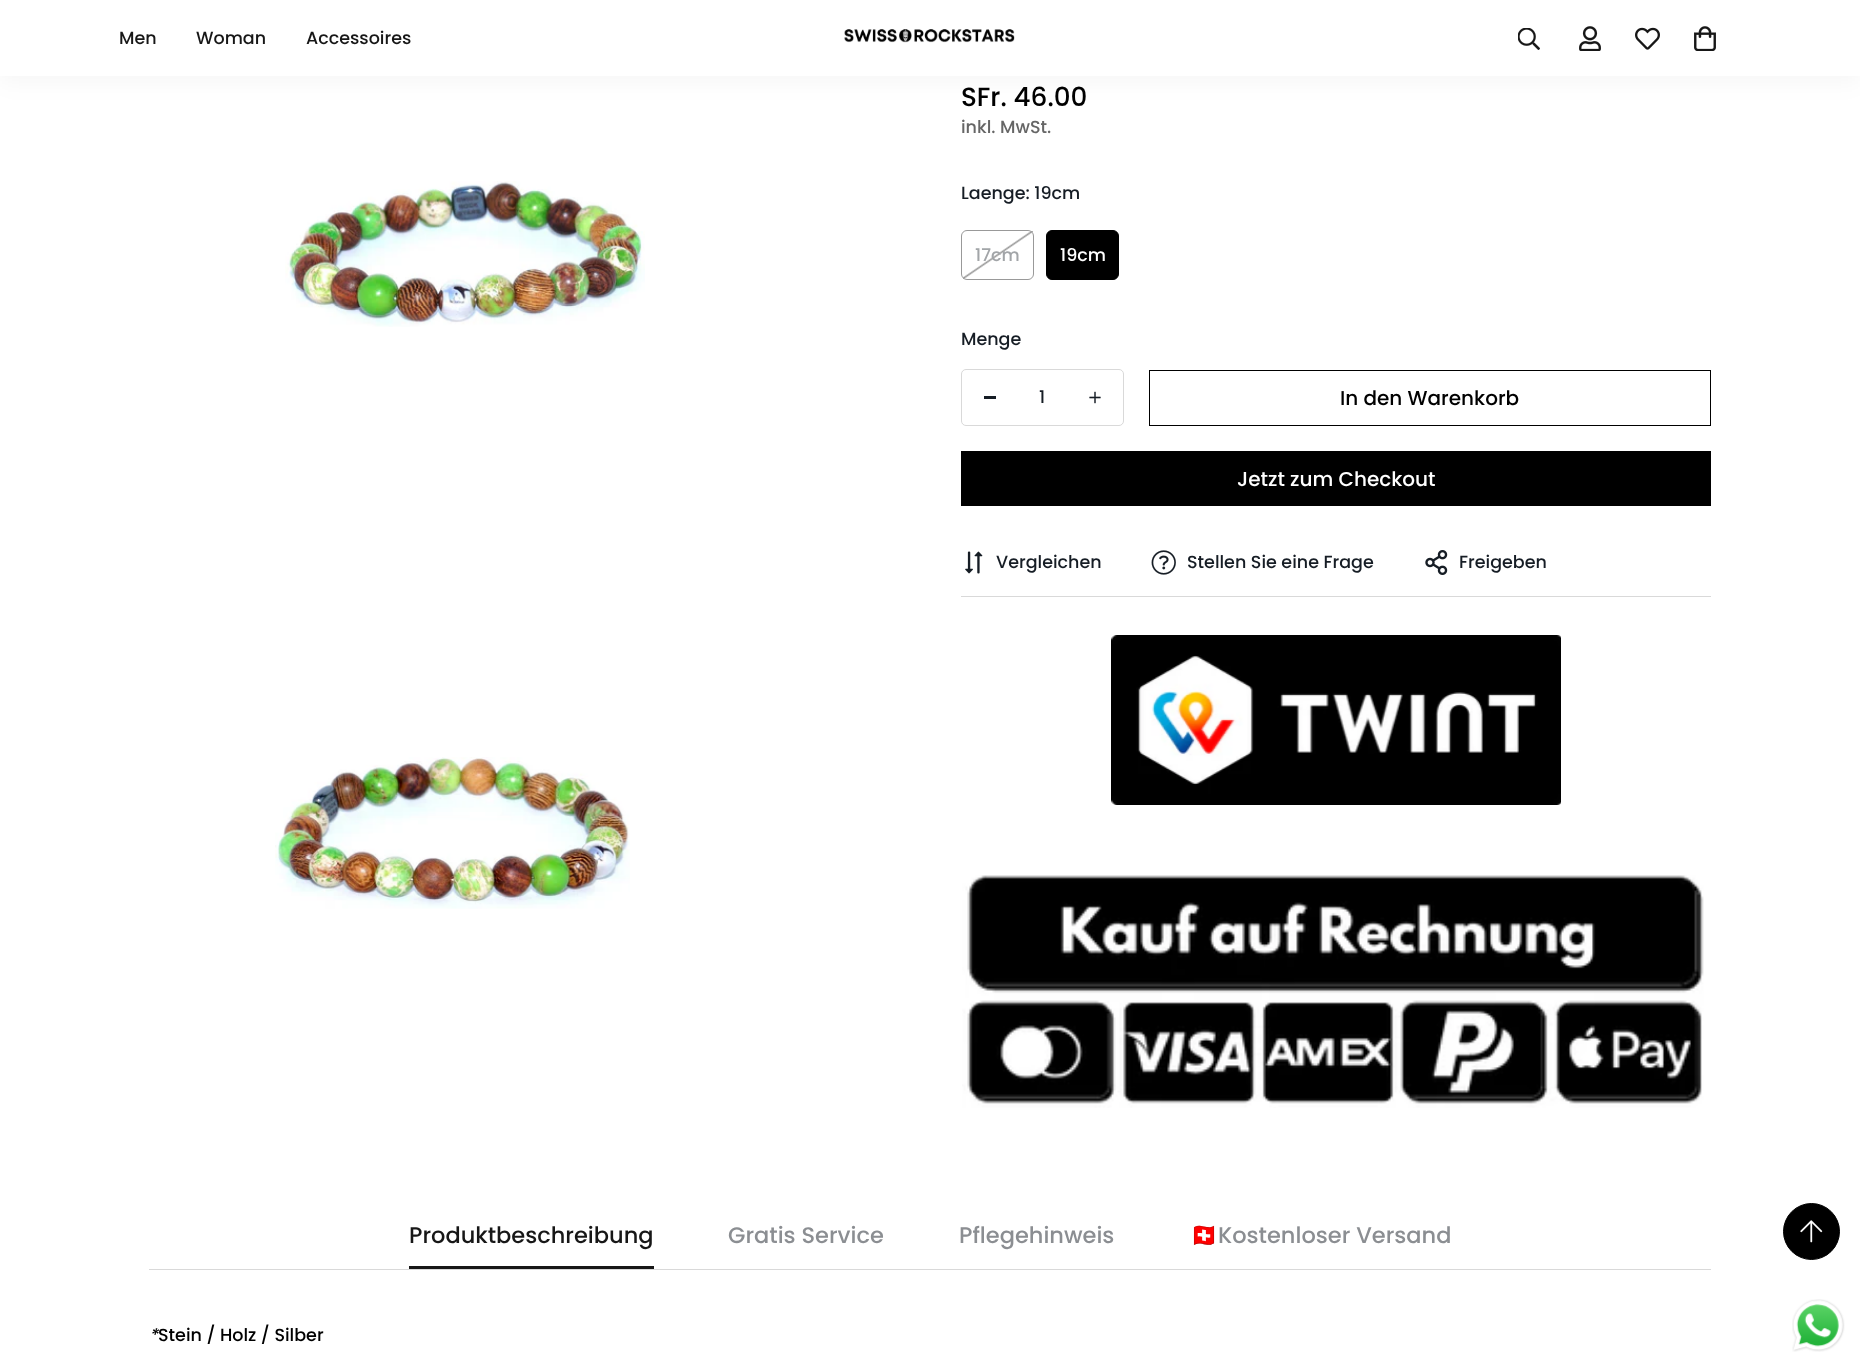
<!DOCTYPE html>
<meta charset="utf-8">
<style>body { margin: 0 } canvas { display: block }</style>
<canvas id="canvas" width="1860" height="1367"></canvas>
<script type="module">
  const canvas = document.getElementById("canvas");
  const ctx = canvas.getContext("2d");
  ctx.miterLimit = 4;
  ctx.fontKerning = "normal";
  async function loadImage(src) {
    const img = new Image();
    img.src = src;
    await img.decode();
    return img;
  }
  let gradient;

  ctx.fillStyle = "#ffffff";
  ctx.fillRect(0, 0, 1860, 1367);
  ctx.fillStyle = "rgba(0, 0, 0, 0.04)";
  ctx.filter = "blur(12.5px)";
  ctx.beginPath();
  ctx.rect(0, 5, 1860, 76);
  ctx.fill();
  ctx.filter = "none";
  ctx.fillStyle = "#ffffff";
  ctx.fillRect(0, 0, 1860, 76);
  ctx.font = "500 17.5px Poppins";
  ctx.fillStyle = "#171717";
  ctx.fillText("Men", 119, 44);
  ctx.fillText("Woman", 196, 44);
  ctx.fillText("Accessoires", 306, 44);
  ctx.drawImage(await loadImage("img1.png"), 844, 29, 171, 14);
  ctx.drawImage(await loadImage("img2.png"), 1518, 28, 22, 22);
  ctx.drawImage(await loadImage("img3.png"), 1579, 26, 22, 25);
  ctx.drawImage(await loadImage("img4.png"), 1635, 27, 25, 23);
  ctx.drawImage(await loadImage("img5.png"), 1694, 26, 22, 25);
  ctx.drawImage(await loadImage("img6.png"), 285, 181, 360, 146);
  ctx.drawImage(await loadImage("img7.png"), 275, 757, 355, 152);
  ctx.font = "500 26.25px Poppins";
  ctx.fillStyle = "#000000";
  ctx.fillText("SFr. 46.00", 961, 106);
  ctx.font = "500 17.5px Poppins";
  ctx.fillStyle = "#666666";
  ctx.fillText("inkl. MwSt.", 961, 133);
  ctx.fillStyle = "#161d25";
  ctx.fillText("Laenge: 19cm", 961, 199);
  ctx.beginPath();
  ctx.roundRect(961.5, 230.5, 72, 49, 5.5);
  ctx.strokeStyle = "#999999";
  ctx.stroke();
  gradient = ctx.createLinearGradient(975, 222, 1020, 288);
  gradient.addColorStop(0.48, "rgba(153, 153, 153, 0)");
  gradient.addColorStop(0.5, "#999999");
  gradient.addColorStop(0.52, "rgba(153, 153, 153, 0)");
  ctx.fillStyle = gradient;
  ctx.fillRect(963, 231, 70, 48);
  ctx.fillStyle = "#a2a5a8";
  ctx.fillText("17cm", 975, 261);
  ctx.fillStyle = "#000000";
  ctx.beginPath();
  ctx.roundRect(1046.5, 230.5, 72, 49, 5.5);
  ctx.fill();
  ctx.strokeStyle = "#000000";
  ctx.stroke();
  ctx.fillStyle = "#ffffff";
  ctx.fillText("19cm", 1060, 261);
  ctx.fillStyle = "#161d25";
  ctx.fillText("Menge", 961, 345);
  ctx.beginPath();
  ctx.roundRect(961.5, 369.5, 162, 56, 4.5);
  ctx.strokeStyle = "#d9d9d9";
  ctx.stroke();
  ctx.fillRect(984, 396, 12, 3);
  ctx.fillText("1", 1039, 403);
  ctx.drawImage(await loadImage("img8.png"), 1089, 391, 12, 13);
  ctx.strokeStyle = "#000000";
  ctx.strokeRect(1149.5, 370.5, 561, 55);
  ctx.font = "500 20px Poppins";
  ctx.fillStyle = "#000000";
  ctx.fillText("In den Warenkorb", 1340, 405);
  ctx.fillRect(961, 451, 750, 55);
  ctx.fillStyle = "#ffffff";
  ctx.fillText("Jetzt zum Checkout", 1237, 486);
  ctx.fillStyle = "#d9d9d9";
  ctx.fillRect(961, 596, 750, 1);
  ctx.drawImage(await loadImage("img9.png"), 965, 551, 18, 23);
  ctx.font = "500 17.5px Poppins";
  ctx.fillStyle = "#161d25";
  ctx.fillText("Vergleichen", 996, 568);
  ctx.drawImage(await loadImage("img10.png"), 1151, 550, 25, 25);
  ctx.fillText("Stellen Sie eine Frage", 1187, 568);
  ctx.drawImage(await loadImage("img11.png"), 1425, 550, 23, 25);
  ctx.fillText("Freigeben", 1459, 568);
  ctx.drawImage(await loadImage("img12.png"), 1111, 635, 450, 170);
  ctx.drawImage(await loadImage("img13.png"), 962, 875, 742, 233);
  ctx.fillStyle = "#d9d9d9";
  ctx.fillRect(149, 1269, 1562, 1);
  ctx.font = "500 22.5px Poppins";
  ctx.fillStyle = "#171717";
  ctx.fillText("Produktbeschreibung", 409, 1243);
  ctx.fillRect(409, 1266, 245, 3);
  ctx.fillStyle = "#8b8e92";
  ctx.fillText("Gratis Service", 728, 1243);
  ctx.fillText("Pflegehinweis", 959, 1243);
  ctx.font = "22.5px Noto Color Emoji";
  ctx.fillText("🇨🇭", 1190, 1243);
  ctx.font = "500 22.5px Poppins";
  ctx.fillText("Kostenloser Versand", 1218, 1243);
  ctx.font = "italic 500 17.5px Poppins";
  ctx.fillStyle = "#000000";
  ctx.fillText("*", 149, 1341);
  ctx.font = "500 17.5px Poppins";
  ctx.fillText("Stein / Holz / Silber", 158, 1341);
  ctx.beginPath();
  ctx.arc(1811.5, 1231.5, 28, 0, Math.PI * 2);
  ctx.fill();
  ctx.stroke();
  ctx.drawImage(await loadImage("img14.png"), 1800, 1220, 23, 23);
  ctx.drawImage(await loadImage("img15.png"), 1792, 1299, 53, 53);
</script>
